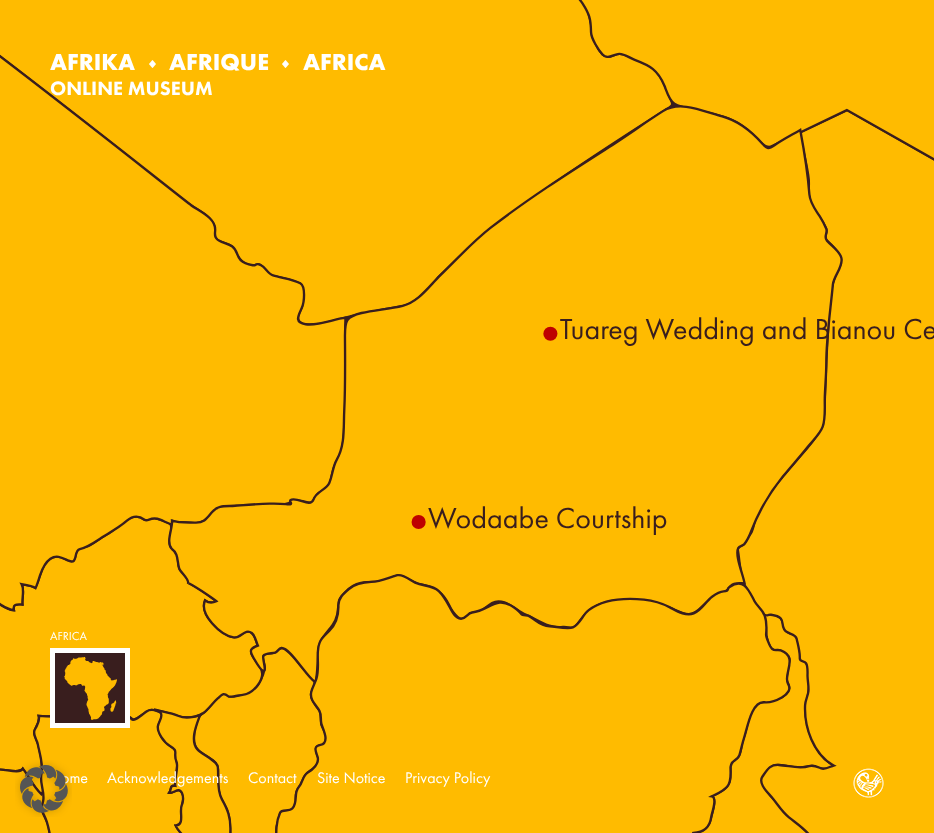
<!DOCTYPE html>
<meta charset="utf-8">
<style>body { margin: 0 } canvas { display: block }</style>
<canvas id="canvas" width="934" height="833"></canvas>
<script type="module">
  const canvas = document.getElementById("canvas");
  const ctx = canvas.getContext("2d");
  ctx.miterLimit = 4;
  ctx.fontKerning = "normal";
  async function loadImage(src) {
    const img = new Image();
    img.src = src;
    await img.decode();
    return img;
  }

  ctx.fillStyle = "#391e1e";
  ctx.fillRect(0, 0, 934, 833);
  ctx.drawImage(await loadImage("img3.png"), 0, 0, 934, 833);
  ctx.font = "16px Futura PT";
  ctx.fillStyle = "#ffffff";
  ctx.fillText("ome", 61, 783);
  ctx.drawImage(await loadImage("img1.png"), 15, 760, 57, 57);
  ctx.font = "bold 24px Futura PT";
  ctx.fillText("AFRIKA", 50, 70);
  ctx.drawImage(await loadImage("img2.png"), 149, 60, 7, 8);
  ctx.fillText("AFRIQUE", 169, 70);
  ctx.drawImage(await loadImage("img2.png"), 282, 60, 7, 8);
  ctx.fillText("AFRICA", 303, 70);
  ctx.font = "900 20px Futura PT";
  ctx.fillText("ONLINE MUSEUM", 50, 95);
  ctx.font = "12px Futura PT";
  ctx.fillText("AFRICA", 50, 640);
  ctx.fillStyle = "#391e1e";
  ctx.fillRect(55, 653, 70, 70);
  ctx.drawImage(await loadImage("img4.png"), 64, 657, 53, 63);
  ctx.strokeStyle = "#ffffff";
  ctx.lineWidth = 5;
  ctx.strokeRect(52.5, 650.5, 75, 75);
  ctx.font = "16px Futura PT";
  ctx.fillStyle = "#ffffff";
  ctx.fillText("Acknowledgements", 107, 783);
  ctx.fillText("Contact", 248, 783);
  ctx.fillText("Site Notice", 317, 783);
  ctx.fillText("Privacy Policy", 405, 783);
  ctx.drawImage(await loadImage("img5.png"), 853, 768, 31, 30);
</script>
